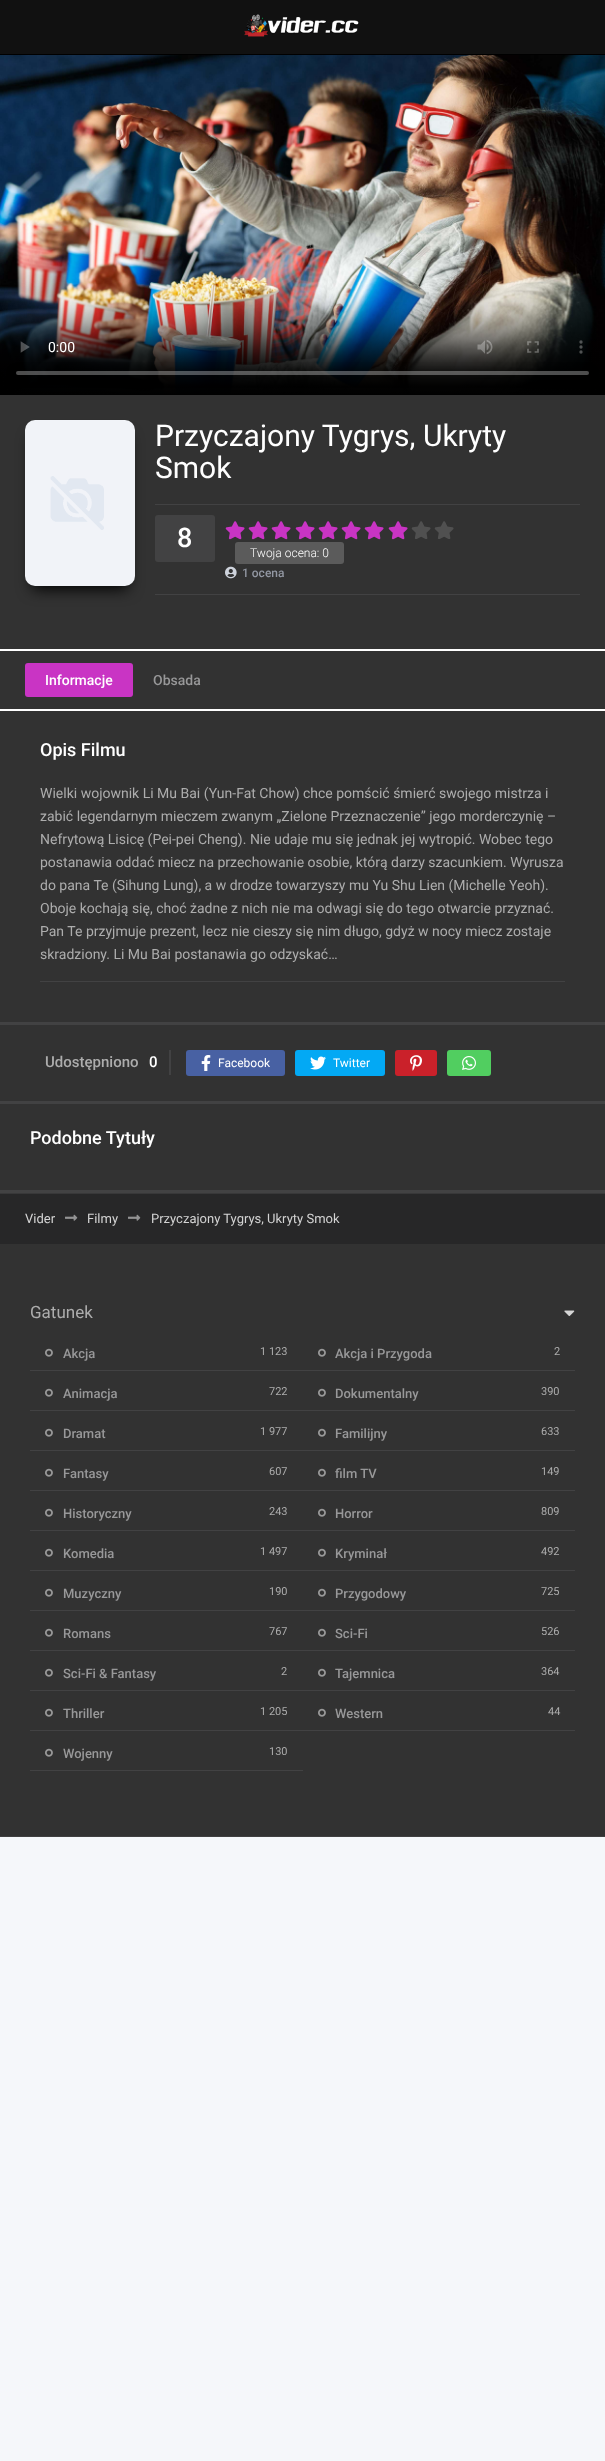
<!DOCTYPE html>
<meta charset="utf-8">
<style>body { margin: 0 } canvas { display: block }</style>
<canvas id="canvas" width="605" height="2461"></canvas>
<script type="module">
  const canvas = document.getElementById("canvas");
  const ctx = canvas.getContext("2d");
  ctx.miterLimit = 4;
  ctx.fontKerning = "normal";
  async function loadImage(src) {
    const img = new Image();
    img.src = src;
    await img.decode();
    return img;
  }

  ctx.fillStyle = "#f5f7fa";
  ctx.fillRect(0, 0, 605, 2461);
  ctx.fillStyle = "#323232";
  ctx.fillRect(0, 395, 605, 1441);
  ctx.fillStyle = "#111111";
  ctx.fillRect(0, 0, 605, 54);
  ctx.fillStyle = "#000000";
  ctx.fillRect(0, 54, 605, 1);
  ctx.drawImage(await loadImage("img1.png"), 244, 14, 115, 23);
  ctx.fillStyle = "#404041";
  ctx.fillRect(0, 1836, 605, 1);
  ctx.drawImage(await loadImage("img2.png"), 0, 55, 605, 340);
  ctx.fillStyle = "#ffffff";
  ctx.fillRect(0, 649, 605, 2);
  ctx.fillStyle = "#000000";
  ctx.filter = "blur(7.5px)";
  ctx.beginPath();
  ctx.roundRect(32, 437, 96, 152, 3);
  ctx.fill();
  ctx.filter = "none";
  ctx.drawImage(await loadImage("img3.png"), 25, 420, 110, 166);
  ctx.font = "30px Roboto";
  ctx.fillStyle = "#ffffff";
  ctx.fillText("Przyczajony Tygrys, Ukryty", 155, 446);
  ctx.fillText("Smok", 155, 478);
  ctx.fillStyle = "#424243";
  ctx.fillRect(155, 504, 425, 1);
  ctx.fillRect(155, 594, 425, 1);
  ctx.drawImage(await loadImage("img4.png"), 225, 521, 20, 19);
  ctx.drawImage(await loadImage("img4.png"), 248, 521, 20, 19);
  ctx.drawImage(await loadImage("img4.png"), 271, 521, 20, 19);
  ctx.drawImage(await loadImage("img4.png"), 295, 521, 20, 19);
  ctx.drawImage(await loadImage("img4.png"), 318, 521, 20, 19);
  ctx.drawImage(await loadImage("img4.png"), 341, 521, 20, 19);
  ctx.drawImage(await loadImage("img4.png"), 364, 521, 20, 19);
  ctx.drawImage(await loadImage("img4.png"), 388, 521, 20, 19);
  ctx.drawImage(await loadImage("img5.png"), 411, 521, 20, 18);
  ctx.drawImage(await loadImage("img5.png"), 434, 521, 20, 18);
  ctx.beginPath();
  ctx.roundRect(155, 515, 60, 47, 3);
  ctx.fill();
  ctx.font = "500 27px Roboto";
  ctx.fillStyle = "#ffffff";
  ctx.fillText("8", 177, 547);
  ctx.drawImage(await loadImage("img6.png"), 225, 566, 12, 13);
  ctx.font = "500 12px Roboto";
  ctx.fillStyle = "#9297a2";
  ctx.fillText("1 ocena", 242, 577);
  ctx.fillStyle = "#5b5b5b";
  ctx.beginPath();
  ctx.roundRect(235, 542, 109, 22, 3);
  ctx.fill();
  ctx.font = "300 12px Roboto";
  ctx.fillStyle = "#ffffff";
  ctx.fillText("Twoja ocena: 0", 250, 557);
  ctx.fillRect(0, 709, 605, 2);
  ctx.fillStyle = "#c934c4";
  ctx.beginPath();
  ctx.roundRect(25, 663, 108, 34, 3);
  ctx.fill();
  ctx.font = "500 14px Roboto";
  ctx.fillStyle = "#ffffff";
  ctx.fillText("Informacje", 45, 685);
  ctx.fillStyle = "#989899";
  ctx.fillText("Obsada", 153, 685);
  ctx.fillStyle = "#424243";
  ctx.fillRect(0, 1022, 605, 3);
  ctx.font = "500 18px Roboto";
  ctx.fillStyle = "#ffffff";
  ctx.fillText("Opis Filmu", 40, 756);
  ctx.fillStyle = "#424243";
  ctx.fillRect(40, 981, 525, 1);
  ctx.font = "14px Roboto";
  ctx.fillStyle = "#adadad";
  ctx.fillText("Wielki wojownik Li Mu Bai (Yun-Fat Chow) chce pomścić śmierć swojego mistrza i", 40, 798);
  ctx.fillText("zabić legendarnym mieczem zwanym „Zielone Przeznaczenie” jego morderczynię –", 40, 821);
  ctx.fillText("Nefrytową Lisicę (Pei-pei Cheng). Nie udaje mu się jednak jej wytropić. Wobec tego", 40, 844);
  ctx.fillText("postanawia oddać miecz na przechowanie osobie, którą darzy szacunkiem. Wyrusza", 40, 867);
  ctx.fillText("do pana Te (Sihung Lung), a w drodze towarzyszy mu Yu Shu Lien (Michelle Yeoh).", 40, 890);
  ctx.fillText("Oboje kochają się, choć żadne z nich nie ma odwagi się do tego otwarcie przyznać.", 40, 913);
  ctx.fillText("Pan Te przyjmuje prezent, lecz nie cieszy się nim długo, gdyż w nocy miecz zostaje", 40, 936);
  ctx.fillText("skradziony. Li Mu Bai postanawia go odzyskać…", 40, 959);
  ctx.fillStyle = "#424243";
  ctx.fillRect(0, 1101, 605, 3);
  ctx.fillRect(169, 1050, 2, 25);
  ctx.font = "500 15px Roboto";
  ctx.fillStyle = "#adadad";
  ctx.fillText("Udostępniono", 45, 1067);
  ctx.fillStyle = "#ffffff";
  ctx.fillText("0", 149, 1067);
  ctx.fillStyle = "#4861a3";
  ctx.beginPath();
  ctx.roundRect(186, 1050, 99, 26, 3);
  ctx.fill();
  ctx.drawImage(await loadImage("img7.png"), 201, 1055, 10, 16);
  ctx.font = "12px Roboto";
  ctx.fillStyle = "#ffffff";
  ctx.fillText("Facebook", 218, 1067);
  ctx.fillStyle = "#03a9f4";
  ctx.beginPath();
  ctx.roundRect(295, 1050, 90, 26, 3);
  ctx.fill();
  ctx.drawImage(await loadImage("img8.png"), 310, 1056, 16, 14);
  ctx.fillStyle = "#ffffff";
  ctx.fillText("Twitter", 333, 1067);
  ctx.fillStyle = "#ca212a";
  ctx.beginPath();
  ctx.roundRect(395, 1050, 42, 26, 3);
  ctx.fill();
  ctx.drawImage(await loadImage("img9.png"), 410, 1055, 12, 16);
  ctx.fillStyle = "#51ce60";
  ctx.beginPath();
  ctx.roundRect(447, 1050, 44, 26, 3);
  ctx.fill();
  ctx.drawImage(await loadImage("img10.png"), 462, 1056, 14, 14);
  ctx.fillStyle = "#424243";
  ctx.fillRect(0, 1190, 605, 3);
  ctx.font = "500 18px Roboto";
  ctx.fillStyle = "#ffffff";
  ctx.fillText("Podobne Tytuły", 30, 1144);
  ctx.fillStyle = "#272728";
  ctx.fillRect(0, 1194, 605, 50);
  ctx.fillStyle = "#383839";
  ctx.fillRect(0, 1193, 605, 1);
  ctx.font = "13px Roboto";
  ctx.fillStyle = "#d4d4d4";
  ctx.fillText("Vider", 25, 1223);
  ctx.drawImage(await loadImage("img11.png"), 65, 1214, 13, 7);
  ctx.fillText("Filmy", 87, 1223);
  ctx.drawImage(await loadImage("img11.png"), 128, 1214, 13, 7);
  ctx.fillText("Przyczajony Tygrys, Ukryty Smok", 151, 1223);
  ctx.font = "17px Roboto";
  ctx.fillStyle = "#adadad";
  ctx.fillText("Gatunek", 30, 1318);
  ctx.drawImage(await loadImage("img12.png"), 564, 1310, 11, 7);
  ctx.fillStyle = "#424243";
  ctx.fillRect(30, 1370, 545, 1);
  ctx.drawImage(await loadImage("img13.png"), 45, 1348, 8, 9);
  ctx.font = "500 13px Roboto";
  ctx.fillStyle = "#989899";
  ctx.fillText("Akcja", 63, 1358);
  ctx.font = "11px Roboto";
  ctx.fillStyle = "#adadad";
  ctx.fillText("1 123", 260, 1355);
  ctx.drawImage(await loadImage("img13.png"), 318, 1348, 8, 9);
  ctx.font = "500 13px Roboto";
  ctx.fillStyle = "#989899";
  ctx.fillText("Akcja i Przygoda", 335, 1358);
  ctx.font = "11px Roboto";
  ctx.fillStyle = "#adadad";
  ctx.fillText("2", 554, 1355);
  ctx.fillStyle = "#424243";
  ctx.fillRect(30, 1410, 545, 1);
  ctx.drawImage(await loadImage("img13.png"), 45, 1388, 8, 9);
  ctx.font = "500 13px Roboto";
  ctx.fillStyle = "#989899";
  ctx.fillText("Animacja", 63, 1398);
  ctx.font = "11px Roboto";
  ctx.fillStyle = "#adadad";
  ctx.fillText("722", 269, 1395);
  ctx.drawImage(await loadImage("img13.png"), 318, 1388, 8, 9);
  ctx.font = "500 13px Roboto";
  ctx.fillStyle = "#989899";
  ctx.fillText("Dokumentalny", 335, 1398);
  ctx.font = "11px Roboto";
  ctx.fillStyle = "#adadad";
  ctx.fillText("390", 541, 1395);
  ctx.fillStyle = "#424243";
  ctx.fillRect(30, 1450, 545, 1);
  ctx.drawImage(await loadImage("img13.png"), 45, 1428, 8, 9);
  ctx.font = "500 13px Roboto";
  ctx.fillStyle = "#989899";
  ctx.fillText("Dramat", 63, 1438);
  ctx.font = "11px Roboto";
  ctx.fillStyle = "#adadad";
  ctx.fillText("1 977", 260, 1435);
  ctx.drawImage(await loadImage("img13.png"), 318, 1428, 8, 9);
  ctx.font = "500 13px Roboto";
  ctx.fillStyle = "#989899";
  ctx.fillText("Familijny", 335, 1438);
  ctx.font = "11px Roboto";
  ctx.fillStyle = "#adadad";
  ctx.fillText("633", 541, 1435);
  ctx.fillStyle = "#424243";
  ctx.fillRect(30, 1490, 545, 1);
  ctx.drawImage(await loadImage("img13.png"), 45, 1468, 8, 9);
  ctx.font = "500 13px Roboto";
  ctx.fillStyle = "#989899";
  ctx.fillText("Fantasy", 63, 1478);
  ctx.font = "11px Roboto";
  ctx.fillStyle = "#adadad";
  ctx.fillText("607", 269, 1475);
  ctx.drawImage(await loadImage("img13.png"), 318, 1468, 8, 9);
  ctx.font = "500 13px Roboto";
  ctx.fillStyle = "#989899";
  ctx.fillText("film TV", 335, 1478);
  ctx.font = "11px Roboto";
  ctx.fillStyle = "#adadad";
  ctx.fillText("149", 541, 1475);
  ctx.fillStyle = "#424243";
  ctx.fillRect(30, 1530, 545, 1);
  ctx.drawImage(await loadImage("img13.png"), 45, 1508, 8, 9);
  ctx.font = "500 13px Roboto";
  ctx.fillStyle = "#989899";
  ctx.fillText("Historyczny", 63, 1518);
  ctx.font = "11px Roboto";
  ctx.fillStyle = "#adadad";
  ctx.fillText("243", 269, 1515);
  ctx.drawImage(await loadImage("img13.png"), 318, 1508, 8, 9);
  ctx.font = "500 13px Roboto";
  ctx.fillStyle = "#989899";
  ctx.fillText("Horror", 335, 1518);
  ctx.font = "11px Roboto";
  ctx.fillStyle = "#adadad";
  ctx.fillText("809", 541, 1515);
  ctx.fillStyle = "#424243";
  ctx.fillRect(30, 1570, 545, 1);
  ctx.drawImage(await loadImage("img13.png"), 45, 1548, 8, 9);
  ctx.font = "500 13px Roboto";
  ctx.fillStyle = "#989899";
  ctx.fillText("Komedia", 63, 1558);
  ctx.font = "11px Roboto";
  ctx.fillStyle = "#adadad";
  ctx.fillText("1 497", 260, 1555);
  ctx.drawImage(await loadImage("img13.png"), 318, 1548, 8, 9);
  ctx.font = "500 13px Roboto";
  ctx.fillStyle = "#989899";
  ctx.fillText("Kryminał", 335, 1558);
  ctx.font = "11px Roboto";
  ctx.fillStyle = "#adadad";
  ctx.fillText("492", 541, 1555);
  ctx.fillStyle = "#424243";
  ctx.fillRect(30, 1610, 545, 1);
  ctx.drawImage(await loadImage("img13.png"), 45, 1588, 8, 9);
  ctx.font = "500 13px Roboto";
  ctx.fillStyle = "#989899";
  ctx.fillText("Muzyczny", 63, 1598);
  ctx.font = "11px Roboto";
  ctx.fillStyle = "#adadad";
  ctx.fillText("190", 269, 1595);
  ctx.drawImage(await loadImage("img13.png"), 318, 1588, 8, 9);
  ctx.font = "500 13px Roboto";
  ctx.fillStyle = "#989899";
  ctx.fillText("Przygodowy", 335, 1598);
  ctx.font = "11px Roboto";
  ctx.fillStyle = "#adadad";
  ctx.fillText("725", 541, 1595);
  ctx.fillStyle = "#424243";
  ctx.fillRect(30, 1650, 545, 1);
  ctx.drawImage(await loadImage("img13.png"), 45, 1628, 8, 9);
  ctx.font = "500 13px Roboto";
  ctx.fillStyle = "#989899";
  ctx.fillText("Romans", 63, 1638);
  ctx.font = "11px Roboto";
  ctx.fillStyle = "#adadad";
  ctx.fillText("767", 269, 1635);
  ctx.drawImage(await loadImage("img13.png"), 318, 1628, 8, 9);
  ctx.font = "500 13px Roboto";
  ctx.fillStyle = "#989899";
  ctx.fillText("Sci-Fi", 335, 1638);
  ctx.font = "11px Roboto";
  ctx.fillStyle = "#adadad";
  ctx.fillText("526", 541, 1635);
  ctx.fillStyle = "#424243";
  ctx.fillRect(30, 1690, 545, 1);
  ctx.drawImage(await loadImage("img13.png"), 45, 1668, 8, 9);
  ctx.font = "500 13px Roboto";
  ctx.fillStyle = "#989899";
  ctx.fillText("Sci-Fi & Fantasy", 63, 1678);
  ctx.font = "11px Roboto";
  ctx.fillStyle = "#adadad";
  ctx.fillText("2", 281, 1675);
  ctx.drawImage(await loadImage("img13.png"), 318, 1668, 8, 9);
  ctx.font = "500 13px Roboto";
  ctx.fillStyle = "#989899";
  ctx.fillText("Tajemnica", 335, 1678);
  ctx.font = "11px Roboto";
  ctx.fillStyle = "#adadad";
  ctx.fillText("364", 541, 1675);
  ctx.fillStyle = "#424243";
  ctx.fillRect(30, 1730, 545, 1);
  ctx.drawImage(await loadImage("img13.png"), 45, 1708, 8, 9);
  ctx.font = "500 13px Roboto";
  ctx.fillStyle = "#989899";
  ctx.fillText("Thriller", 63, 1718);
  ctx.font = "11px Roboto";
  ctx.fillStyle = "#adadad";
  ctx.fillText("1 205", 260, 1715);
  ctx.drawImage(await loadImage("img13.png"), 318, 1708, 8, 9);
  ctx.font = "500 13px Roboto";
  ctx.fillStyle = "#989899";
  ctx.fillText("Western", 335, 1718);
  ctx.font = "11px Roboto";
  ctx.fillStyle = "#adadad";
  ctx.fillText("44", 548, 1715);
  ctx.fillStyle = "#424243";
  ctx.fillRect(30, 1770, 273, 1);
  ctx.drawImage(await loadImage("img13.png"), 45, 1748, 8, 9);
  ctx.font = "500 13px Roboto";
  ctx.fillStyle = "#989899";
  ctx.fillText("Wojenny", 63, 1758);
  ctx.font = "11px Roboto";
  ctx.fillStyle = "#adadad";
  ctx.fillText("130", 269, 1755);
</script>
